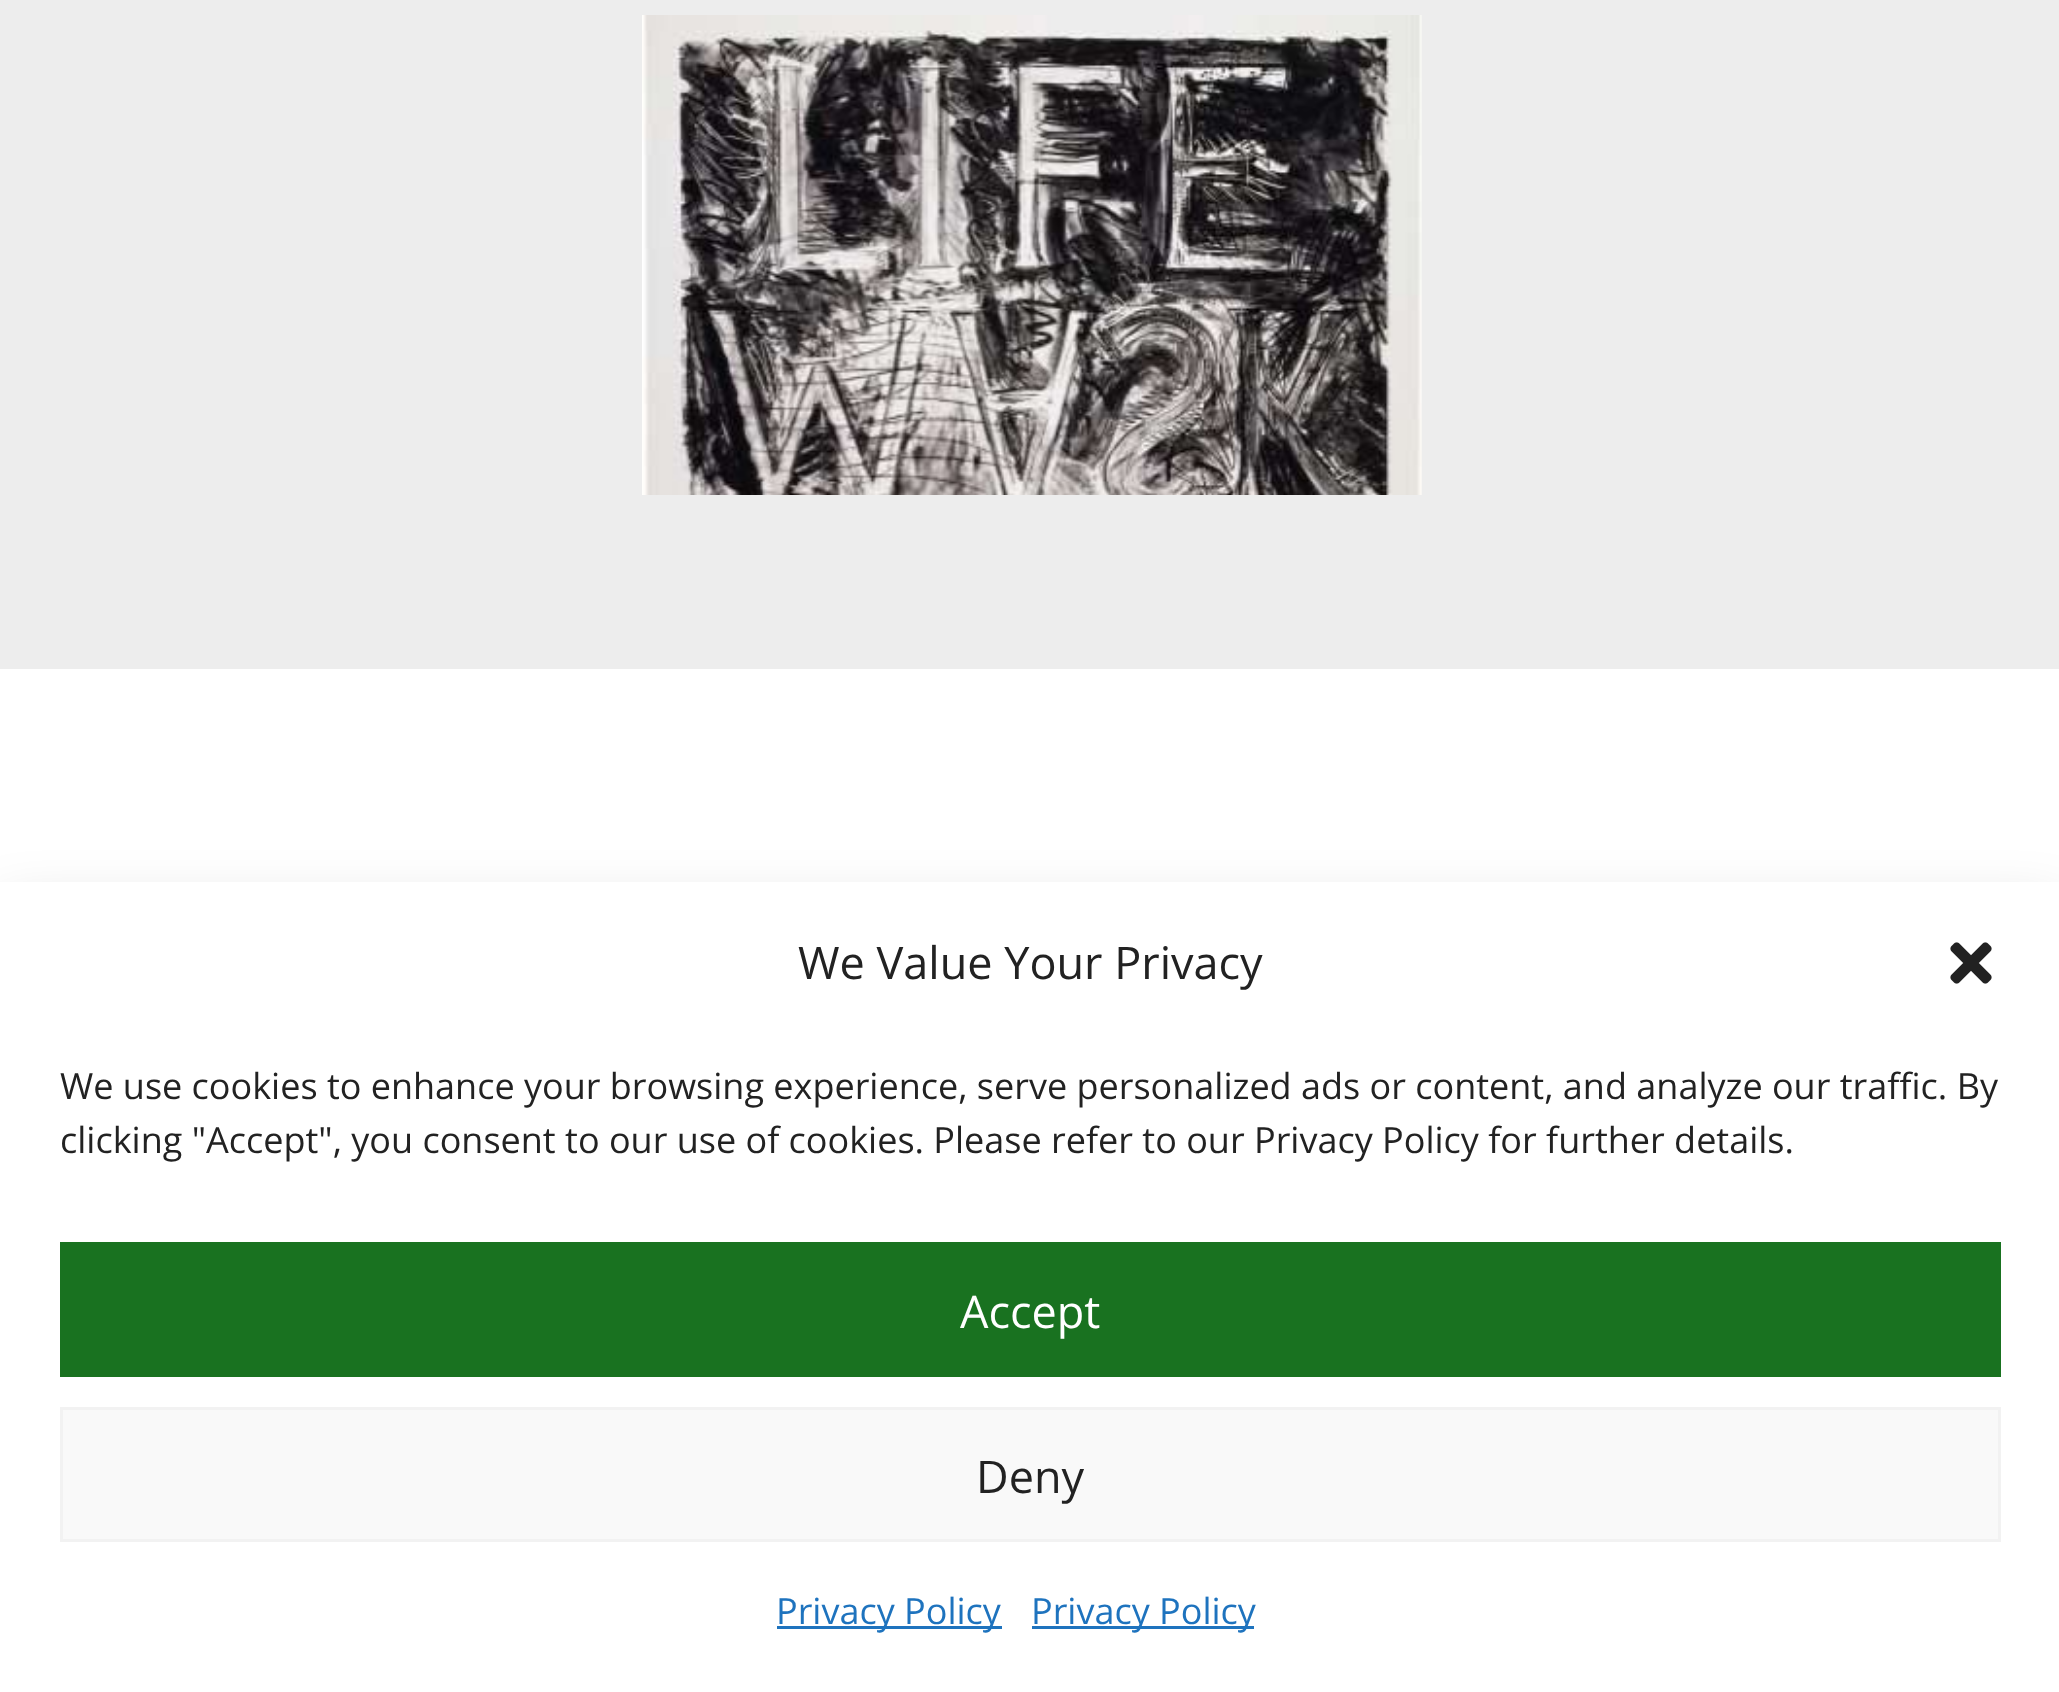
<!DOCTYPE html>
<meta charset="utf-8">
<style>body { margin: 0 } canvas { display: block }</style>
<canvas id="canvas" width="2059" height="1692"></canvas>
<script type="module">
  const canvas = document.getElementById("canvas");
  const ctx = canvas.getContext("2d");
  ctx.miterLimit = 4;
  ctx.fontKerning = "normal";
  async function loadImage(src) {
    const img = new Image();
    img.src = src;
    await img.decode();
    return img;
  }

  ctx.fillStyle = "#ffffff";
  ctx.fillRect(0, 0, 2059, 1692);
  ctx.fillStyle = "#ededed";
  ctx.fillRect(0, 0, 2059, 669);
  ctx.drawImage(await loadImage("img1.png"), 642, 15, 780, 480);
  ctx.fillStyle = "rgba(0, 0, 0, 0.19)";
  ctx.filter = "blur(30px)";
  ctx.beginPath();
  ctx.rect(0, 912, 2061, 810);
  ctx.fill();
  ctx.filter = "none";
  ctx.fillStyle = "#ffffff";
  ctx.fillRect(0, 882, 2059, 810);
  ctx.font = "45px Open Sans";
  ctx.fillStyle = "#222222";
  ctx.fillText("We Value Your Privacy", 798, 979);
  ctx.drawImage(await loadImage("img2.png"), 1950, 942, 42, 42);
  ctx.font = "36px Open Sans";
  ctx.fillText("We use cookies to enhance your browsing experience, serve personalized ads or content, and analyze our traffic. By", 60, 1099);
  ctx.fillText("clicking \"Accept\", you consent to our use of cookies. Please refer to our Privacy Policy for further details.", 60, 1153);
  ctx.fillStyle = "#197220";
  ctx.fillRect(60, 1242, 1941, 135);
  ctx.font = "45px Open Sans";
  ctx.fillStyle = "#ffffff";
  ctx.fillText("Accept", 960, 1328);
  ctx.fillStyle = "#f9f9f9";
  ctx.beginPath();
  ctx.rect(61.5, 1408.5, 1938, 132);
  ctx.fill();
  ctx.strokeStyle = "#f2f2f2";
  ctx.lineWidth = 3;
  ctx.stroke();
  ctx.fillStyle = "#222222";
  ctx.fillText("Deny", 976, 1493);
  ctx.fillStyle = "#1e73be";
  ctx.fillRect(777, 1626, 225, 3);
  ctx.font = "36px Open Sans";
  ctx.fillText("Privacy Policy", 776, 1624);
  ctx.fillRect(1032, 1626, 222, 3);
  ctx.fillText("Privacy Policy", 1031, 1624);
</script>
